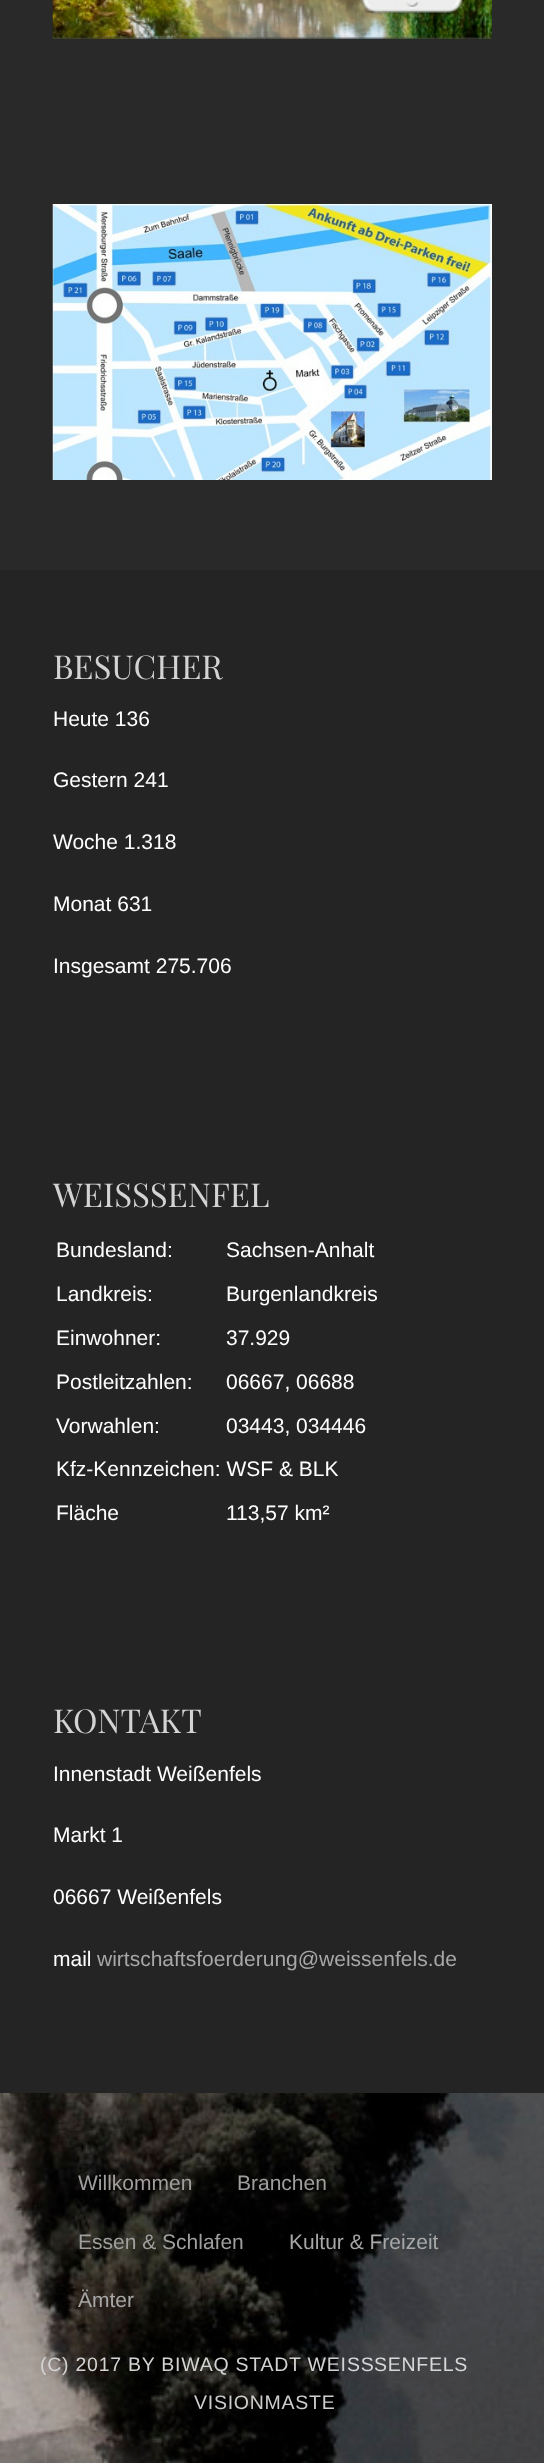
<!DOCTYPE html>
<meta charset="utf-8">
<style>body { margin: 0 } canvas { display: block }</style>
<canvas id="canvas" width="544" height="2463"></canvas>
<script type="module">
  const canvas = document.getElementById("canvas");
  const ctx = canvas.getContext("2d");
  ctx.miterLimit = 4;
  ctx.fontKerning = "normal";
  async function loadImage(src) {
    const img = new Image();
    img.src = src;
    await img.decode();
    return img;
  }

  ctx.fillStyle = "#ffffff";
  ctx.fillRect(0, 0, 544, 2463);
  ctx.fillStyle = "#292929";
  ctx.fillRect(0, 0, 544, 570);
  ctx.drawImage(await loadImage("img1.png"), 52, 0, 440, 39);
  ctx.drawImage(await loadImage("img2.png"), 52, 204, 440, 276);
  ctx.fillStyle = "#242424";
  ctx.fillRect(0, 570, 544, 1523);
  ctx.font = "33px Playfair Display";
  ctx.fillStyle = "#d3d3d3";
  ctx.fillText("BESUCHER", 53, 679);
  ctx.font = "21px Liberation Sans";
  ctx.fillStyle = "#ffffff";
  ctx.fillText("Heute 136", 53, 726);
  ctx.fillText("Gestern 241", 53, 787);
  ctx.fillText("Woche 1.318", 53, 849);
  ctx.fillText("Monat 631", 53, 911);
  ctx.fillText("Insgesamt 275.706", 53, 973);
  ctx.font = "33px Playfair Display";
  ctx.fillStyle = "#d3d3d3";
  ctx.fillText("WEISSSENFEL", 53, 1207);
  ctx.font = "21px Liberation Sans";
  ctx.fillStyle = "#ffffff";
  ctx.fillText("Bundesland:", 56, 1257);
  ctx.fillText("Sachsen-Anhalt", 226, 1257);
  ctx.fillText("Landkreis:", 56, 1301);
  ctx.fillText("Burgenlandkreis", 226, 1301);
  ctx.fillText("Einwohner:", 56, 1345);
  ctx.fillText("37.929", 226, 1345);
  ctx.fillText("Postleitzahlen:", 56, 1389);
  ctx.fillText("06667, 06688", 226, 1389);
  ctx.fillText("Vorwahlen:", 56, 1433);
  ctx.fillText("03443, 034446", 226, 1433);
  ctx.fillText("Kfz-Kennzeichen: WSF & BLK", 56, 1476);
  ctx.fillText("Fläche", 56, 1520);
  ctx.fillText("113,57 km²", 226, 1520);
  ctx.font = "33px Playfair Display";
  ctx.fillStyle = "#d3d3d3";
  ctx.fillText("KONTAKT", 53, 1733);
  ctx.font = "21px Liberation Sans";
  ctx.fillStyle = "#ffffff";
  ctx.fillText("Innenstadt Weißenfels", 53, 1781);
  ctx.fillText("Markt 1", 53, 1842);
  ctx.fillText("06667 Weißenfels", 53, 1904);
  ctx.fillText("mail", 53, 1966);
  ctx.fillStyle = "#a7a7a7";
  ctx.fillText("wirtschaftsfoerderung@weissenfels.de", 97, 1966);
  ctx.drawImage(await loadImage("img3.png"), 0, 2093, 544, 370);
  ctx.fillStyle = "#a09f9e";
  ctx.fillText("Willkommen", 78, 2190);
  ctx.fillText("Branchen", 237, 2190);
  ctx.fillText("Essen & Schlafen", 78, 2249);
  ctx.fillStyle = "#a7a7a7";
  ctx.fillText("Kultur & Freizeit", 289, 2249);
  ctx.fillText("Ämter", 78, 2307);
  ctx.letterSpacing = "0.75px";
  ctx.font = "19.5px Liberation Sans";
  ctx.fillStyle = "#d3d3d3";
  ctx.fillText("(C) 2017 BY BIWAQ STADT WEI", 40, 2371);
  ctx.fillStyle = "#d7d8d9";
  ctx.fillText("SS", 347, 2371);
  ctx.fillText("SENFELS", 374, 2371);
  ctx.fillStyle = "#cdcdcd";
  ctx.fillText("VISIONMASTE", 194, 2409);
</script>
